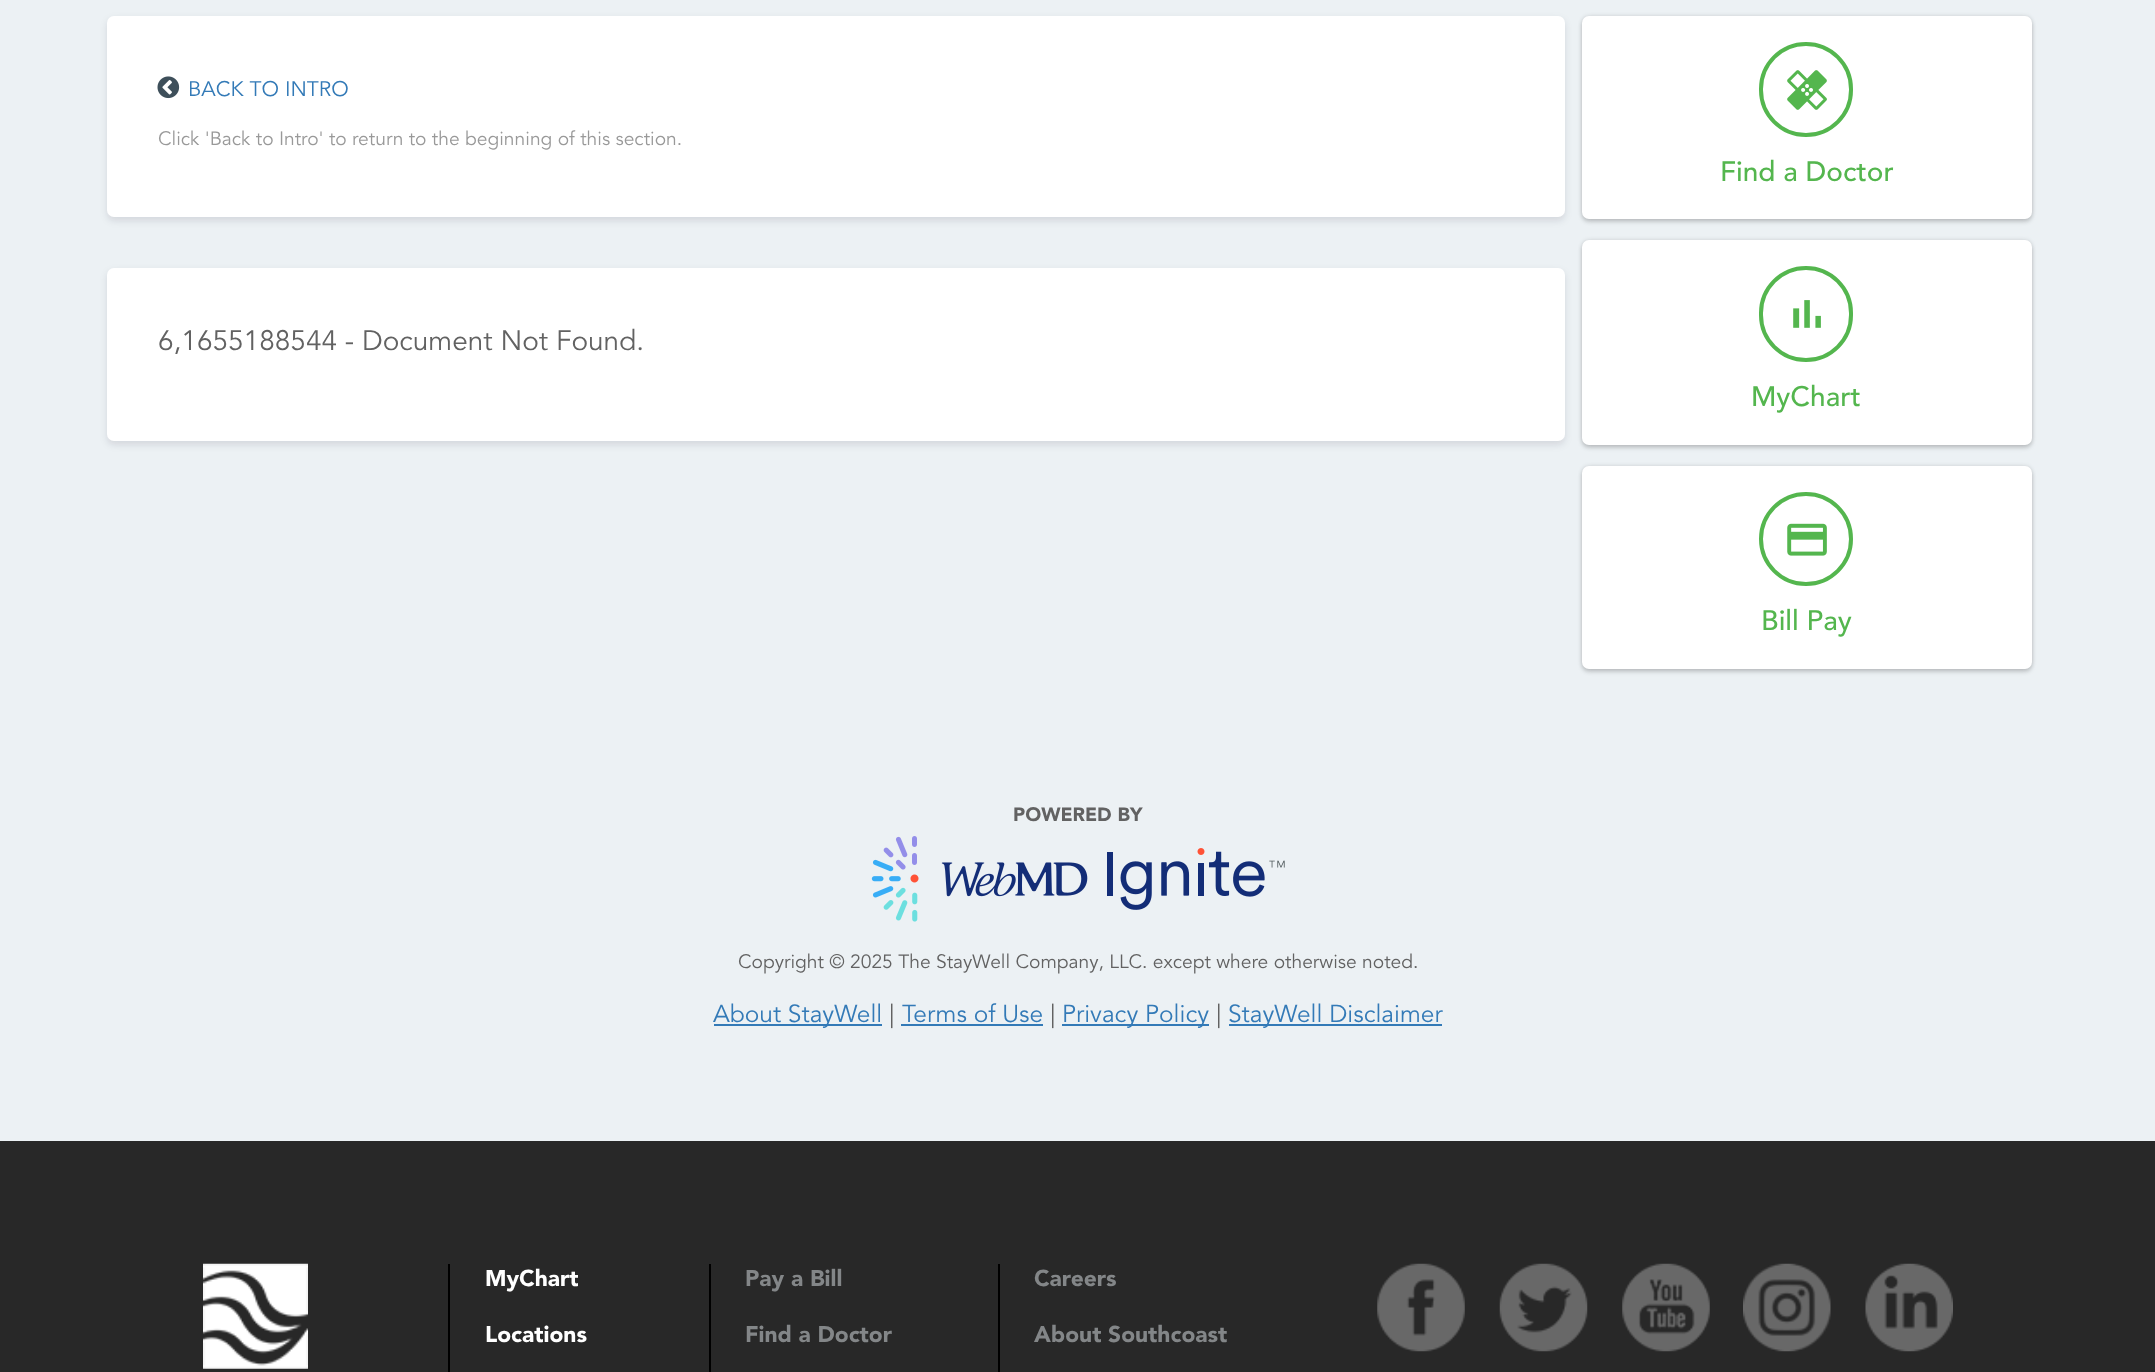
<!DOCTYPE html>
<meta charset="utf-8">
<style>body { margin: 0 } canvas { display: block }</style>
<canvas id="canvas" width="2155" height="1372"></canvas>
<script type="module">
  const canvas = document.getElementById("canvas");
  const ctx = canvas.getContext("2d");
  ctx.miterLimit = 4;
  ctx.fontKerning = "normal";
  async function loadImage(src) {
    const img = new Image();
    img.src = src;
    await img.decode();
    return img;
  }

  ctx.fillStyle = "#ecf1f4";
  ctx.fillRect(0, 0, 2155, 1372);
  ctx.fillStyle = "rgba(13, 0, 31, 0.1)";
  ctx.filter = "blur(3.5px)";
  ctx.beginPath();
  ctx.roundRect(107, 19, 1458, 202, 7);
  ctx.fill();
  ctx.filter = "none";
  ctx.fillStyle = "#ffffff";
  ctx.beginPath();
  ctx.roundRect(107, 16, 1458, 201, 7);
  ctx.fill();
  ctx.drawImage(await loadImage("img1.png"), 157, 76, 23, 23);
  ctx.font = "21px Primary";
  ctx.fillStyle = "#337ab7";
  ctx.fillText("BACK TO INTRO", 188, 96);
  ctx.font = "19.25px Primary";
  ctx.fillStyle = "#999999";
  ctx.fillText("Click 'Back to Intro' to return to the beginning of this section.", 158, 145);
  ctx.fillStyle = "rgba(13, 0, 31, 0.1)";
  ctx.filter = "blur(3.5px)";
  ctx.beginPath();
  ctx.roundRect(107, 271, 1458, 174, 7);
  ctx.fill();
  ctx.filter = "none";
  ctx.fillStyle = "#ffffff";
  ctx.beginPath();
  ctx.roundRect(107, 268, 1458, 173, 7);
  ctx.fill();
  ctx.font = "28px Primary";
  ctx.fillStyle = "#626262";
  ctx.fillText("6,1655188544 - Document Not Found.", 158, 350);
  ctx.fillStyle = "rgba(0, 0, 0, 0.12)";
  ctx.filter = "blur(2px)";
  ctx.beginPath();
  ctx.roundRect(1582, 16, 450, 203, 7);
  ctx.fill();
  ctx.filter = "none";
  ctx.fillStyle = "rgba(0, 0, 0, 0.16)";
  ctx.filter = "blur(2px)";
  ctx.beginPath();
  ctx.roundRect(1582, 19, 450, 203, 7);
  ctx.fill();
  ctx.filter = "none";
  ctx.fillStyle = "#ffffff";
  ctx.beginPath();
  ctx.roundRect(1582, 16, 450, 203, 7);
  ctx.fill();
  ctx.beginPath();
  ctx.roundRect(1761, 44, 90, 91, 45);
  ctx.strokeStyle = "#54b64e";
  ctx.lineWidth = 4;
  ctx.stroke();
  ctx.drawImage(await loadImage("img2.png"), 1787, 70, 40, 40);
  ctx.font = "500 28px Primary";
  ctx.fillStyle = "#54b64e";
  ctx.fillText("Find a Doctor", 1720, 181);
  ctx.fillStyle = "rgba(0, 0, 0, 0.12)";
  ctx.filter = "blur(2px)";
  ctx.beginPath();
  ctx.roundRect(1582, 240, 450, 205, 7);
  ctx.fill();
  ctx.filter = "none";
  ctx.fillStyle = "rgba(0, 0, 0, 0.16)";
  ctx.filter = "blur(2px)";
  ctx.beginPath();
  ctx.roundRect(1582, 243, 450, 205, 7);
  ctx.fill();
  ctx.filter = "none";
  ctx.fillStyle = "#ffffff";
  ctx.beginPath();
  ctx.roundRect(1582, 240, 450, 205, 7);
  ctx.fill();
  ctx.beginPath();
  ctx.roundRect(1761, 268, 90, 92, 45);
  ctx.stroke();
  ctx.drawImage(await loadImage("img3.png"), 1793, 300, 28, 28);
  ctx.fillStyle = "#54b64e";
  ctx.fillText("MyChart", 1751, 406);
  ctx.fillStyle = "rgba(0, 0, 0, 0.12)";
  ctx.filter = "blur(2px)";
  ctx.beginPath();
  ctx.roundRect(1582, 466, 450, 203, 7);
  ctx.fill();
  ctx.filter = "none";
  ctx.fillStyle = "rgba(0, 0, 0, 0.16)";
  ctx.filter = "blur(2px)";
  ctx.beginPath();
  ctx.roundRect(1582, 469, 450, 203, 7);
  ctx.fill();
  ctx.filter = "none";
  ctx.fillStyle = "#ffffff";
  ctx.beginPath();
  ctx.roundRect(1582, 466, 450, 203, 7);
  ctx.fill();
  ctx.beginPath();
  ctx.arc(1806, 539, 45, 0, Math.PI * 2);
  ctx.stroke();
  ctx.drawImage(await loadImage("img4.png"), 1787, 523, 40, 33);
  ctx.fillStyle = "#54b64e";
  ctx.fillText("Bill Pay", 1761, 630);
  ctx.font = "900 19.25px Primary";
  ctx.fillStyle = "#626262";
  ctx.fillText("POWERED BY", 1013, 821);
  ctx.drawImage(await loadImage("img5.png"), 871, 836, 414, 86);
  ctx.font = "19.25px Primary";
  ctx.fillText("Copyright © 2025 The StayWell Company, LLC. except where otherwise noted.", 738, 968);
  ctx.fillStyle = "#337ab7";
  ctx.fillRect(714, 1024, 168, 2);
  ctx.font = "24.5px Primary";
  ctx.fillText("About StayWell", 713, 1022);
  ctx.fillStyle = "#626262";
  ctx.fillText("|", 889, 1022);
  ctx.fillStyle = "#337ab7";
  ctx.fillText("Terms of Use", 902, 1022);
  ctx.fillRect(901, 1024, 142, 2);
  ctx.fillStyle = "#626262";
  ctx.fillText("|", 1050, 1022);
  ctx.fillStyle = "#337ab7";
  ctx.fillRect(1062, 1024, 147, 2);
  ctx.fillText("Privacy Policy", 1062, 1022);
  ctx.fillStyle = "#626262";
  ctx.fillText("|", 1216, 1022);
  ctx.fillStyle = "#337ab7";
  ctx.fillRect(1229, 1024, 213, 2);
  ctx.fillText("StayWell Disclaimer", 1228, 1022);
  ctx.fillStyle = "#282828";
  ctx.fillRect(0, 1141, 2155, 231);
  ctx.drawImage(await loadImage("img6.png"), 203, 1263, 105, 106);
  ctx.fillStyle = "#000000";
  ctx.fillRect(448, 1264, 2, 108);
  ctx.font = "900 22.75px Primary";
  ctx.fillStyle = "#ffffff";
  ctx.fillText("MyChart", 485, 1286);
  ctx.fillText("Locations", 485, 1342);
  ctx.fillStyle = "#000000";
  ctx.fillRect(709, 1264, 2, 108);
  ctx.fillStyle = "#838688";
  ctx.fillText("Pay a Bill", 745, 1286);
  ctx.fillText("Find a Doctor", 745, 1342);
  ctx.fillStyle = "#000000";
  ctx.fillRect(998, 1264, 2, 108);
  ctx.fillStyle = "#838688";
  ctx.fillText("Careers", 1034, 1286);
  ctx.fillText("About Southcoast", 1034, 1342);
  ctx.drawImage(await loadImage("img7.png"), 1377, 1263, 88, 89);
  ctx.drawImage(await loadImage("img8.png"), 1499, 1263, 89, 89);
  ctx.drawImage(await loadImage("img9.png"), 1622, 1263, 88, 89);
  ctx.drawImage(await loadImage("img10.png"), 1743, 1263, 88, 89);
  ctx.drawImage(await loadImage("img11.png"), 1865, 1263, 88, 89);
</script>
